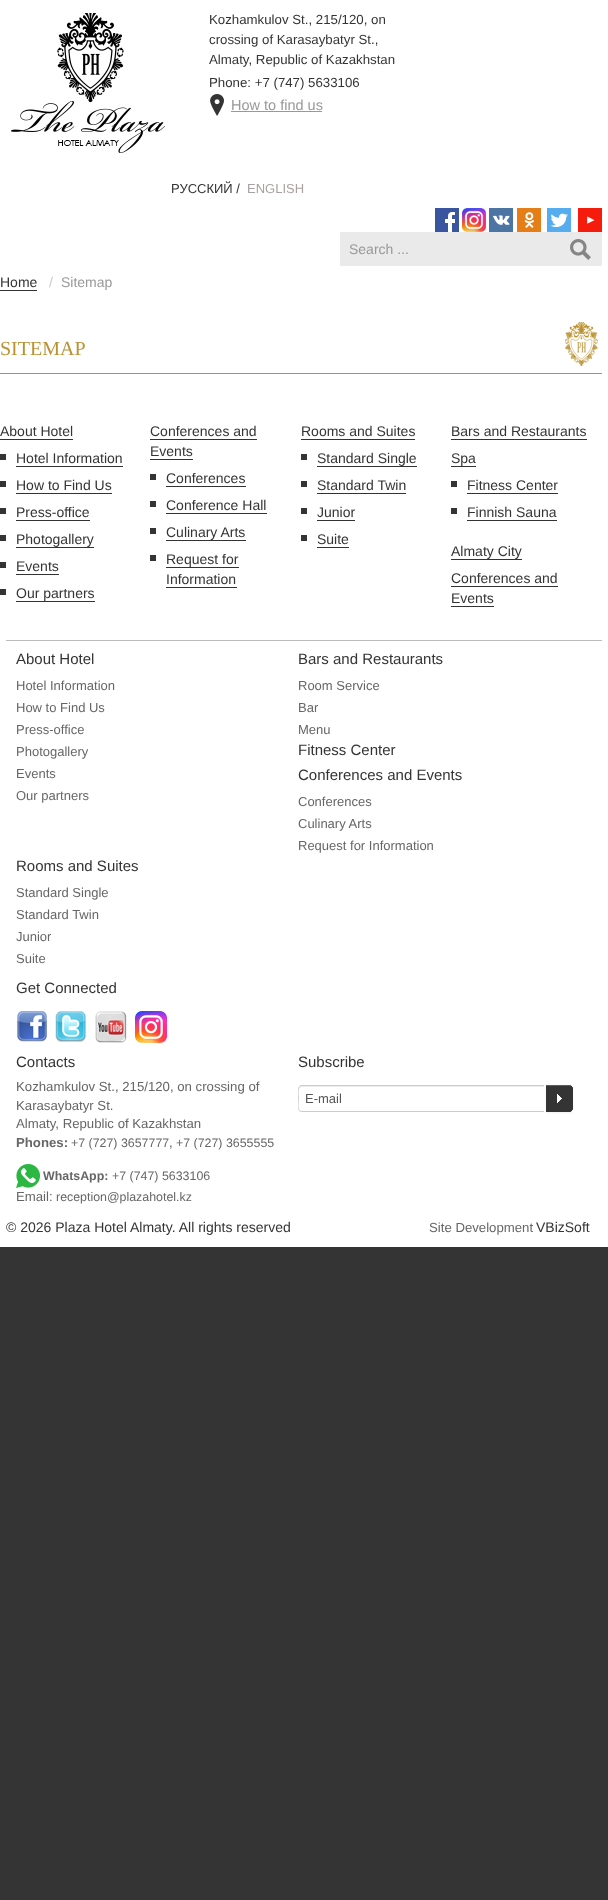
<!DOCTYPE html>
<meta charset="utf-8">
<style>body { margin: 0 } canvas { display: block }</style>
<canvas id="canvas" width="608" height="1900"></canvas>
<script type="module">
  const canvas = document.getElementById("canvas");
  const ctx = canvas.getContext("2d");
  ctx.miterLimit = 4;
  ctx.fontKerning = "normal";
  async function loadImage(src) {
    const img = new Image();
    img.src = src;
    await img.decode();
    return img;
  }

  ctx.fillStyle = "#343434";
  ctx.fillRect(0, 0, 608, 1900);
  ctx.fillStyle = "#ffffff";
  ctx.fillRect(0, 0, 608, 272);
  ctx.drawImage(await loadImage("img1.png"), 11, 13, 154, 140);
  ctx.font = "13.25px Liberation Sans";
  ctx.fillStyle = "#343434";
  ctx.fillText("Kozhamkulov St., 215/120, on", 209, 24);
  ctx.fillText("crossing of Karasaybatyr St.,", 209, 44);
  ctx.fillText("Almaty, Republic of Kazakhstan", 209, 64);
  ctx.fillText("Phone: +7 (747) 5633106", 209, 87);
  ctx.drawImage(await loadImage("img2.png"), 210, 94, 14, 22);
  ctx.font = "14.5px Liberation Sans";
  ctx.fillStyle = "#999999";
  ctx.fillText("How to find us", 231, 110);
  ctx.fillRect(231, 111, 91, 1);
  ctx.font = "13px Liberation Sans";
  ctx.fillStyle = "#343434";
  ctx.fillText("РУССКИЙ /", 171, 193);
  ctx.fillStyle = "#a9a2a0";
  ctx.fillText("ENGLISH", 247, 193);
  ctx.drawImage(await loadImage("img3.png"), 435, 208, 24, 24);
  ctx.drawImage(await loadImage("img4.png"), 462, 208, 24, 24);
  ctx.drawImage(await loadImage("img5.png"), 489, 208, 24, 24);
  ctx.drawImage(await loadImage("img6.png"), 517, 208, 24, 24);
  ctx.drawImage(await loadImage("img7.png"), 547, 208, 24, 24);
  ctx.drawImage(await loadImage("img8.png"), 578, 208, 24, 24);
  ctx.fillStyle = "#eaeaea";
  ctx.fillRect(340, 232, 262, 34);
  ctx.font = "14px Liberation Sans";
  ctx.fillStyle = "#999999";
  ctx.fillText("Search ...", 349, 254);
  ctx.drawImage(await loadImage("img9.png"), 570, 239, 21, 21);
  ctx.fillStyle = "#ffffff";
  ctx.fillRect(0, 272, 608, 975);
  ctx.fillStyle = "#343434";
  ctx.fillText("Home", 0, 287);
  ctx.fillStyle = "#333333";
  ctx.fillRect(0, 290, 37, 1);
  ctx.fillStyle = "#cccccc";
  ctx.fillText("/", 49, 287);
  ctx.fillStyle = "#999999";
  ctx.fillText("Sitemap", 61, 287);
  ctx.drawImage(await loadImage("img10.png"), 565, 322, 33, 44);
  ctx.fillStyle = "#bb9132";
  ctx.fillRect(0, 373, 602, 1);
  ctx.font = "20px Liberation Serif";
  ctx.fillText("SITEMAP", 0, 355);
  ctx.font = "14px Liberation Sans";
  ctx.fillStyle = "#343434";
  ctx.fillText("About Hotel", 0, 436);
  ctx.fillStyle = "#333333";
  ctx.fillRect(0, 439, 73, 1);
  ctx.fillStyle = "#343434";
  ctx.fillRect(0, 454, 6, 6);
  ctx.fillText("Hotel Information", 16, 463);
  ctx.fillStyle = "#333333";
  ctx.fillRect(16, 466, 107, 1);
  ctx.fillStyle = "#343434";
  ctx.fillRect(0, 481, 6, 6);
  ctx.fillText("How to Find Us", 16, 490);
  ctx.fillStyle = "#333333";
  ctx.fillRect(16, 493, 96, 1);
  ctx.fillStyle = "#343434";
  ctx.fillRect(0, 508, 6, 6);
  ctx.fillText("Press-office", 16, 517);
  ctx.fillStyle = "#333333";
  ctx.fillRect(16, 520, 74, 1);
  ctx.fillStyle = "#343434";
  ctx.fillRect(0, 535, 6, 6);
  ctx.fillText("Photogallery", 16, 544);
  ctx.fillStyle = "#333333";
  ctx.fillRect(16, 547, 78, 1);
  ctx.fillStyle = "#343434";
  ctx.fillRect(0, 562, 6, 6);
  ctx.fillText("Events", 16, 571);
  ctx.fillStyle = "#333333";
  ctx.fillRect(16, 574, 43, 1);
  ctx.fillStyle = "#343434";
  ctx.fillRect(0, 589, 6, 6);
  ctx.fillText("Our partners", 16, 598);
  ctx.fillStyle = "#333333";
  ctx.fillRect(16, 601, 79, 1);
  ctx.fillStyle = "#343434";
  ctx.fillText("Conferences and", 150, 436);
  ctx.fillStyle = "#333333";
  ctx.fillRect(150, 439, 107, 1);
  ctx.fillStyle = "#343434";
  ctx.fillText("Events", 150, 456);
  ctx.fillStyle = "#333333";
  ctx.fillRect(150, 459, 43, 1);
  ctx.fillStyle = "#343434";
  ctx.fillRect(150, 474, 6, 6);
  ctx.fillText("Conferences", 166, 483);
  ctx.fillStyle = "#333333";
  ctx.fillRect(166, 486, 80, 1);
  ctx.fillStyle = "#343434";
  ctx.fillRect(150, 501, 6, 6);
  ctx.fillText("Conference Hall", 166, 510);
  ctx.fillStyle = "#333333";
  ctx.fillRect(166, 513, 101, 1);
  ctx.fillStyle = "#343434";
  ctx.fillRect(150, 528, 6, 6);
  ctx.fillText("Culinary Arts", 166, 537);
  ctx.fillStyle = "#333333";
  ctx.fillRect(166, 540, 80, 1);
  ctx.fillStyle = "#343434";
  ctx.fillRect(150, 555, 6, 6);
  ctx.fillText("Request for", 166, 564);
  ctx.fillStyle = "#333333";
  ctx.fillRect(166, 567, 73, 1);
  ctx.fillStyle = "#343434";
  ctx.fillText("Information", 166, 584);
  ctx.fillStyle = "#333333";
  ctx.fillRect(166, 587, 71, 1);
  ctx.fillStyle = "#343434";
  ctx.fillText("Rooms and Suites", 301, 436);
  ctx.fillStyle = "#333333";
  ctx.fillRect(301, 439, 114, 1);
  ctx.fillStyle = "#343434";
  ctx.fillRect(301, 454, 6, 6);
  ctx.fillText("Standard Single", 317, 463);
  ctx.fillStyle = "#333333";
  ctx.fillRect(317, 466, 100, 1);
  ctx.fillStyle = "#343434";
  ctx.fillRect(301, 481, 6, 6);
  ctx.fillText("Standard Twin", 317, 490);
  ctx.fillStyle = "#333333";
  ctx.fillRect(317, 493, 89, 1);
  ctx.fillStyle = "#343434";
  ctx.fillRect(301, 508, 6, 6);
  ctx.fillText("Junior", 317, 517);
  ctx.fillStyle = "#333333";
  ctx.fillRect(317, 520, 38, 1);
  ctx.fillStyle = "#343434";
  ctx.fillRect(301, 535, 6, 6);
  ctx.fillText("Suite", 317, 544);
  ctx.fillStyle = "#333333";
  ctx.fillRect(317, 547, 32, 1);
  ctx.fillStyle = "#343434";
  ctx.fillText("Bars and Restaurants", 451, 436);
  ctx.fillStyle = "#333333";
  ctx.fillRect(451, 439, 136, 1);
  ctx.fillStyle = "#343434";
  ctx.fillText("Spa", 451, 463);
  ctx.fillStyle = "#333333";
  ctx.fillRect(451, 466, 25, 1);
  ctx.fillStyle = "#343434";
  ctx.fillRect(451, 481, 6, 6);
  ctx.fillText("Fitness Center", 467, 490);
  ctx.fillStyle = "#333333";
  ctx.fillRect(467, 493, 91, 1);
  ctx.fillStyle = "#343434";
  ctx.fillRect(451, 508, 6, 6);
  ctx.fillText("Finnish Sauna", 467, 517);
  ctx.fillStyle = "#333333";
  ctx.fillRect(467, 520, 90, 1);
  ctx.fillStyle = "#343434";
  ctx.fillText("Almaty City", 451, 556);
  ctx.fillStyle = "#333333";
  ctx.fillRect(451, 559, 71, 1);
  ctx.fillStyle = "#343434";
  ctx.fillText("Conferences and", 451, 583);
  ctx.fillStyle = "#333333";
  ctx.fillRect(451, 586, 107, 1);
  ctx.fillStyle = "#343434";
  ctx.fillText("Events", 451, 603);
  ctx.fillStyle = "#333333";
  ctx.fillRect(451, 606, 43, 1);
  ctx.fillStyle = "#bcbcbc";
  ctx.fillRect(6, 640, 596, 1);
  ctx.font = "15px Liberation Sans";
  ctx.fillStyle = "#343434";
  ctx.fillText("About Hotel", 16, 664);
  ctx.font = "13px Liberation Sans";
  ctx.fillStyle = "#666666";
  ctx.fillText("Hotel Information", 16, 690);
  ctx.fillText("How to Find Us", 16, 712);
  ctx.fillText("Press-office", 16, 734);
  ctx.fillText("Photogallery", 16, 756);
  ctx.fillText("Events", 16, 778);
  ctx.fillText("Our partners", 16, 800);
  ctx.font = "15px Liberation Sans";
  ctx.fillStyle = "#343434";
  ctx.fillText("Bars and Restaurants", 298, 664);
  ctx.font = "13px Liberation Sans";
  ctx.fillStyle = "#666666";
  ctx.fillText("Room Service", 298, 690);
  ctx.fillText("Bar", 298, 712);
  ctx.fillText("Menu", 298, 734);
  ctx.font = "15px Liberation Sans";
  ctx.fillStyle = "#343434";
  ctx.fillText("Fitness Center", 298, 755);
  ctx.fillText("Conferences and Events", 298, 780);
  ctx.font = "13px Liberation Sans";
  ctx.fillStyle = "#666666";
  ctx.fillText("Conferences", 298, 806);
  ctx.fillText("Culinary Arts", 298, 828);
  ctx.fillText("Request for Information", 298, 850);
  ctx.font = "15px Liberation Sans";
  ctx.fillStyle = "#343434";
  ctx.fillText("Rooms and Suites", 16, 871);
  ctx.font = "13px Liberation Sans";
  ctx.fillStyle = "#666666";
  ctx.fillText("Standard Single", 16, 897);
  ctx.fillText("Standard Twin", 16, 919);
  ctx.fillText("Junior", 16, 941);
  ctx.fillText("Suite", 16, 963);
  ctx.font = "15px Liberation Sans";
  ctx.fillStyle = "#343434";
  ctx.fillText("Get Connected", 16, 993);
  ctx.drawImage(await loadImage("img11.png"), 17, 1011, 30, 31);
  ctx.drawImage(await loadImage("img12.png"), 55, 1011, 31, 31);
  ctx.drawImage(await loadImage("img13.png"), 95, 1011, 32, 32);
  ctx.drawImage(await loadImage("img14.png"), 135, 1011, 32, 32);
  ctx.fillText("Contacts", 16, 1067);
  ctx.font = "13.2px Liberation Sans";
  ctx.fillStyle = "#666666";
  ctx.fillText("Kozhamkulov St., 215/120, on crossing of", 16, 1091);
  ctx.fillText("Karasaybatyr St.", 16, 1110);
  ctx.fillText("Almaty, Republic of Kazakhstan", 16, 1128);
  ctx.font = "bold 13.2px Liberation Sans";
  ctx.fillText("Phones:", 16, 1147);
  ctx.font = "12.4px Liberation Sans";
  ctx.fillText("+7 (727) 3657777", 71, 1147);
  ctx.font = "13.2px Liberation Sans";
  ctx.fillText(",", 169, 1147);
  ctx.font = "12.4px Liberation Sans";
  ctx.fillText("+7 (727) 3655555", 176, 1147);
  ctx.drawImage(await loadImage("img15.png"), 16, 1164, 24, 24);
  ctx.font = "bold 12.4px Liberation Sans";
  ctx.fillText("WhatsApp:", 43, 1180);
  ctx.font = "12.4px Liberation Sans";
  ctx.fillText("+7 (747) 5633106", 112, 1180);
  ctx.font = "13.2px Liberation Sans";
  ctx.fillText("Email:", 16, 1201);
  ctx.font = "12.4px Liberation Sans";
  ctx.fillText("reception@plazahotel.kz", 56, 1201);
  ctx.font = "15px Liberation Sans";
  ctx.fillStyle = "#343434";
  ctx.fillText("Subscribe", 298, 1067);
  ctx.fillStyle = "#ececec";
  ctx.beginPath();
  ctx.moveTo(302, 1087);
  ctx.lineTo(544, 1087);
  ctx.lineTo(544, 1086);
  ctx.lineTo(302, 1086);
  ctx.bezierCurveTo(300, 1086, 299, 1088, 299, 1090);
  ctx.bezierCurveTo(299, 1088, 300, 1087, 302, 1087);
  ctx.closePath();
  ctx.fill();
  ctx.fillStyle = "#cccccc";
  ctx.beginPath();
  ctx.moveTo(302, 1085);
  ctx.lineTo(544, 1085);
  ctx.lineTo(544, 1112);
  ctx.lineTo(302, 1112);
  ctx.bezierCurveTo(300, 1112, 298, 1110, 298, 1108);
  ctx.lineTo(298, 1089);
  ctx.bezierCurveTo(298, 1087, 300, 1085, 302, 1085);
  ctx.closePath();
  ctx.moveTo(302, 1086);
  ctx.lineTo(544, 1086);
  ctx.lineTo(544, 1111);
  ctx.lineTo(301, 1111);
  ctx.bezierCurveTo(297, 1110, 299, 1101, 299, 1098);
  ctx.bezierCurveTo(299, 1096, 297, 1086, 302, 1086);
  ctx.closePath();
  ctx.fill("evenodd");
  ctx.font = "13px Liberation Sans";
  ctx.fillStyle = "#555555";
  ctx.fillText("E-mail", 305, 1103);
  ctx.fillStyle = "rgba(0, 0, 0, 0.05)";
  ctx.filter = "blur(1px)";
  ctx.beginPath();
  ctx.rect(546, 1086, 27, 27);
  ctx.fill();
  ctx.filter = "none";
  ctx.drawImage(await loadImage("img16.png"), 546, 1085, 27, 27);
  ctx.fillStyle = "rgba(255, 255, 255, 0.2)";
  ctx.fillRect(546, 1085, 27, 1);
  ctx.font = "14px Liberation Sans";
  ctx.fillStyle = "#343434";
  ctx.fillText("© 2026 Plaza Hotel Almaty. All rights reserved", 6, 1232);
  ctx.font = "13.2px Liberation Sans";
  ctx.fillStyle = "#666666";
  ctx.fillText("Site Development", 429, 1232);
  ctx.font = "14px Liberation Sans";
  ctx.fillStyle = "#343434";
  ctx.fillText("VBizSoft", 536, 1232);
</script>
